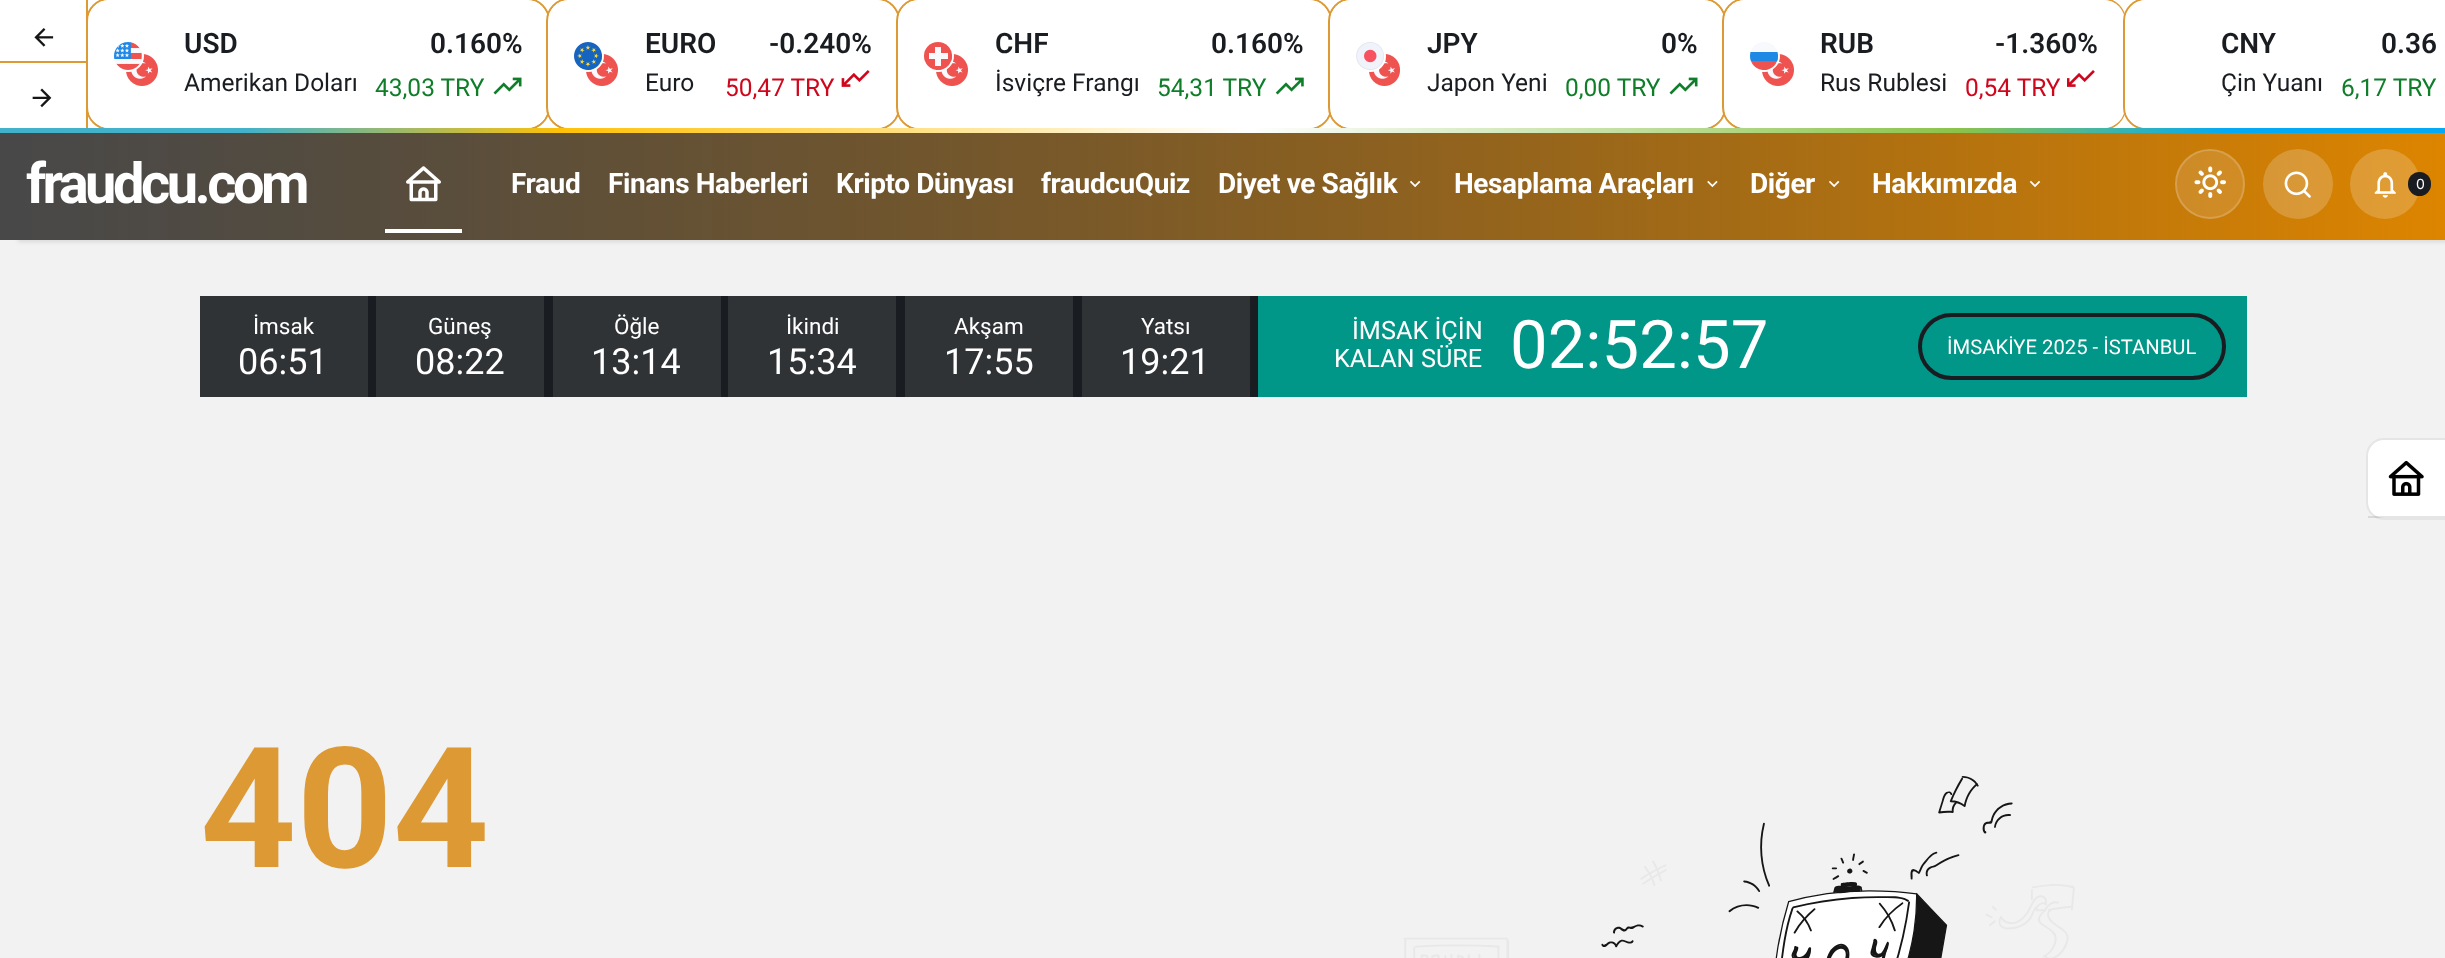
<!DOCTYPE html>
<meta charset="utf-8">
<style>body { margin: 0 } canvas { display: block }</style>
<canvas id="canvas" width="2445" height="958"></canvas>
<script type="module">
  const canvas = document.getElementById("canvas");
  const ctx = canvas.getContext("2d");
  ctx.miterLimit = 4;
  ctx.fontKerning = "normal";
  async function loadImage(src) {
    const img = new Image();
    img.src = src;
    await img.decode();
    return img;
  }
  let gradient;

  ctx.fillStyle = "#f2f2f3";
  ctx.fillRect(0, 0, 2445, 958);
  ctx.save();
  ctx.beginPath();
  ctx.moveTo(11, 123);
  ctx.lineTo(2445, 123);
  ctx.lineTo(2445, 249);
  ctx.lineTo(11, 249);
  ctx.closePath();
  ctx.moveTo(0, 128);
  ctx.lineTo(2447, 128);
  ctx.lineTo(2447, 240);
  ctx.lineTo(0, 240);
  ctx.closePath();
  ctx.clip("evenodd");
  ctx.fillStyle = "rgba(0, 0, 0, 0.1)";
  ctx.filter = "blur(2px)";
  ctx.beginPath();
  ctx.rect(18, 130, 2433, 112);
  ctx.fill();
  ctx.filter = "none";
  ctx.restore();
  ctx.fillStyle = "#ffffff";
  ctx.fillRect(0, 0, 2146, 128);
  ctx.fillStyle = "#dd9933";
  ctx.fillRect(86, 0, 2, 67);
  ctx.drawImage(await loadImage("img1.png"), 34, 28, 20, 19);
  gradient = ctx.createLinearGradient(0, 130, 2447, 130);
  gradient.addColorStop(0.1, "#42b1ca");
  gradient.addColorStop(0.23, "#ffc107");
  gradient.addColorStop(0.51, "#ffffff");
  gradient.addColorStop(0.8, "#8bc34a");
  gradient.addColorStop(0.91, "#03a9f4");
  ctx.fillStyle = gradient;
  ctx.fillRect(0, 128, 2445, 5);
  ctx.save();
  ctx.beginPath();
  ctx.rect(88, 0, 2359, 128);
  ctx.clip();
  ctx.beginPath();
  ctx.roundRect(-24, -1, 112, 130, 22);
  ctx.strokeStyle = "#dd9933";
  ctx.lineWidth = 2;
  ctx.stroke();
  ctx.beginPath();
  ctx.roundRect(87, -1, 462, 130, 22);
  ctx.stroke();
  ctx.restore();
  ctx.fillStyle = "#ffffff";
  ctx.beginPath();
  ctx.roundRect(88, 0, 460, 128, 21);
  ctx.fill();
  ctx.drawImage(await loadImage("img3.png"), 126, 54, 32, 32);
  ctx.fillStyle = "#f0f3fa";
  ctx.beginPath();
  ctx.arc(128, 56, 15, 0, Math.PI * 2);
  ctx.fill();
  ctx.strokeStyle = "#ffffff";
  ctx.lineWidth = 2;
  ctx.stroke();
  ctx.drawImage(await loadImage("img2.png"), 114, 42, 28, 28);
  ctx.font = "600 28px Roboto";
  ctx.fillStyle = "#191c20";
  ctx.fillText("USD", 184, 53);
  ctx.fillText("0.160%", 430, 53);
  ctx.font = "24.5px Roboto";
  ctx.fillText("Amerikan Doları", 184, 91);
  ctx.fillStyle = "#0f7e29";
  ctx.fillText("43,03 TRY", 375, 96);
  ctx.drawImage(await loadImage("img4.png"), 493, 77, 29, 18);
  ctx.save();
  ctx.beginPath();
  ctx.rect(88, 0, 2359, 128);
  ctx.clip();
  ctx.beginPath();
  ctx.roundRect(547, -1, 352, 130, 22);
  ctx.strokeStyle = "#dd9933";
  ctx.stroke();
  ctx.restore();
  ctx.fillStyle = "#ffffff";
  ctx.beginPath();
  ctx.roundRect(548, 0, 350, 128, 21);
  ctx.fill();
  ctx.drawImage(await loadImage("img6.png"), 586, 54, 32, 32);
  ctx.beginPath();
  ctx.arc(588, 56, 15, 0, Math.PI * 2);
  ctx.stroke();
  ctx.drawImage(await loadImage("img5.png"), 574, 42, 28, 28);
  ctx.font = "600 28px Roboto";
  ctx.fillStyle = "#191c20";
  ctx.fillText("EURO", 645, 53);
  ctx.fillText("-0.240%", 769, 53);
  ctx.font = "24.5px Roboto";
  ctx.fillText("Euro", 645, 91);
  ctx.fillStyle = "#cf061c";
  ctx.fillText("50,47 TRY", 725, 96);
  ctx.drawImage(await loadImage("img7.png"), 841, 70, 29, 17);
  ctx.save();
  ctx.beginPath();
  ctx.rect(88, 0, 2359, 128);
  ctx.clip();
  ctx.beginPath();
  ctx.roundRect(897, -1, 434, 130, 22);
  ctx.strokeStyle = "#dd9933";
  ctx.stroke();
  ctx.restore();
  ctx.fillStyle = "#ffffff";
  ctx.beginPath();
  ctx.roundRect(898, 0, 432, 128, 21);
  ctx.fill();
  ctx.drawImage(await loadImage("img6.png"), 936, 54, 32, 32);
  ctx.beginPath();
  ctx.arc(938, 56, 15, 0, Math.PI * 2);
  ctx.stroke();
  ctx.fillStyle = "#ef5350";
  ctx.beginPath();
  ctx.arc(938, 56, 14, 0, Math.PI * 2);
  ctx.fill();
  ctx.fillStyle = "#f8f9fd";
  ctx.fillRect(929, 53, 19, 6);
  ctx.fillRect(935, 47, 6, 19);
  ctx.font = "600 28px Roboto";
  ctx.fillStyle = "#191c20";
  ctx.fillText("CHF", 995, 53);
  ctx.fillText("0.160%", 1211, 53);
  ctx.font = "24.5px Roboto";
  ctx.fillText("İsviçre Frangı", 995, 91);
  ctx.fillStyle = "#0f7e29";
  ctx.fillText("54,31 TRY", 1157, 96);
  ctx.drawImage(await loadImage("img8.png"), 1275, 77, 29, 18);
  ctx.save();
  ctx.beginPath();
  ctx.rect(88, 0, 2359, 128);
  ctx.clip();
  ctx.beginPath();
  ctx.roundRect(1329, -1, 396, 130, 22);
  ctx.strokeStyle = "#dd9933";
  ctx.stroke();
  ctx.restore();
  ctx.fillStyle = "#ffffff";
  ctx.beginPath();
  ctx.roundRect(1330, 0, 394, 128, 21);
  ctx.fill();
  ctx.drawImage(await loadImage("img10.png"), 1369, 54, 31, 32);
  ctx.fillStyle = "#f0f3fa";
  ctx.beginPath();
  ctx.roundRect(1356, 41, 29, 30, 14.5);
  ctx.fill();
  ctx.stroke();
  ctx.drawImage(await loadImage("img9.png"), 1356, 42, 28, 28);
  ctx.font = "600 28px Roboto";
  ctx.fillStyle = "#191c20";
  ctx.fillText("JPY", 1427, 53);
  ctx.fillText("0%", 1661, 53);
  ctx.font = "24.5px Roboto";
  ctx.fillText("Japon Yeni", 1427, 91);
  ctx.fillStyle = "#0f7e29";
  ctx.fillText("0,00 TRY", 1565, 96);
  ctx.drawImage(await loadImage("img4.png"), 1669, 77, 29, 18);
  ctx.save();
  ctx.beginPath();
  ctx.rect(88, 0, 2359, 128);
  ctx.clip();
  ctx.beginPath();
  ctx.roundRect(1723, -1, 402, 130, 22);
  ctx.strokeStyle = "#dd9933";
  ctx.stroke();
  ctx.restore();
  ctx.fillStyle = "#ffffff";
  ctx.beginPath();
  ctx.roundRect(1724, 0, 401, 128, 21);
  ctx.fill();
  ctx.drawImage(await loadImage("img6.png"), 1762, 54, 32, 32);
  ctx.beginPath();
  ctx.arc(1764, 56, 15, 0, Math.PI * 2);
  ctx.stroke();
  ctx.save();
  ctx.beginPath();
  ctx.roundRect(1750, 42, 28, 28, 14);
  ctx.clip();
  ctx.fillStyle = "#f8f9fd";
  ctx.fillRect(1750, 42, 28, 10);
  ctx.fillStyle = "#1e88e5";
  ctx.fillRect(1750, 52, 28, 9);
  ctx.fillStyle = "#ef5350";
  ctx.fillRect(1751, 61, 26, 9);
  ctx.restore();
  ctx.font = "600 28px Roboto";
  ctx.fillStyle = "#191c20";
  ctx.fillText("RUB", 1820, 53);
  ctx.fillText("-1.360%", 1995, 53);
  ctx.font = "24.5px Roboto";
  ctx.fillText("Rus Rublesi", 1820, 91);
  ctx.fillStyle = "#cf061c";
  ctx.fillText("0,54 TRY", 1965, 96);
  ctx.drawImage(await loadImage("img11.png"), 2067, 70, 28, 17);
  ctx.save();
  ctx.beginPath();
  ctx.rect(88, 0, 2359, 128);
  ctx.clip();
  ctx.beginPath();
  ctx.roundRect(2124, -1, 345, 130, 22);
  ctx.strokeStyle = "#dd9933";
  ctx.stroke();
  ctx.restore();
  ctx.fillStyle = "#ffffff";
  ctx.beginPath();
  ctx.moveTo(2146, 0);
  ctx.lineTo(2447, 0);
  ctx.lineTo(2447, 128);
  ctx.lineTo(2146, 128);
  ctx.bezierCurveTo(2134.5, 128, 2125, 118.5, 2125, 107);
  ctx.lineTo(2125, 21);
  ctx.bezierCurveTo(2125, 9.5, 2134.5, 0, 2146, 0);
  ctx.closePath();
  ctx.fill();
  ctx.font = "600 28px Roboto";
  ctx.fillStyle = "#191c20";
  ctx.fillText("CNY", 2221, 53);
  ctx.fillText("0.36", 2381, 53);
  ctx.font = "24.5px Roboto";
  ctx.fillText("Çin Yuanı", 2221, 91);
  ctx.fillStyle = "#0f7e29";
  ctx.fillText("6,17 TRY", 2341, 96);
  ctx.fillStyle = "#dd9933";
  ctx.fillRect(0, 61, 88, 2);
  ctx.fillRect(86, 61, 2, 67);
  ctx.drawImage(await loadImage("img12.png"), 32, 88, 20, 20);
  gradient = ctx.createLinearGradient(0, 184, 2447, 184);
  gradient.addColorStop(0, "rgba(0, 0, 0, 0.7)");
  gradient.addColorStop(1, "#dd8500");
  ctx.fillStyle = gradient;
  ctx.fillRect(0, 133, 2445, 107);
  ctx.letterSpacing = "-3.5px";
  ctx.font = "bold 56px Roboto";
  ctx.fillStyle = "#ffffff";
  ctx.fillText("fraudcu.com", 26, 203);
  ctx.drawImage(await loadImage("img13.png"), 406, 166, 35, 36);
  ctx.fillRect(385, 229, 77, 4);
  ctx.letterSpacing = "-0.4px";
  ctx.font = "bold 28px Roboto";
  ctx.fillText("Fraud", 511, 193);
  ctx.fillText("Finans Haberleri", 608, 193);
  ctx.fillText("Kripto Dünyası", 836, 193);
  ctx.fillText("fraudcuQuiz", 1041, 193);
  ctx.fillText("Diyet ve Sağlık", 1218, 193);
  ctx.drawImage(await loadImage("img14.png"), 1410, 180, 11, 8);
  ctx.fillText("Hesaplama Araçları", 1454, 193);
  ctx.drawImage(await loadImage("img15.png"), 1707, 180, 11, 8);
  ctx.fillText("Diğer", 1750, 193);
  ctx.drawImage(await loadImage("img16.png"), 1829, 180, 11, 8);
  ctx.fillText("Hakkımızda", 1872, 193);
  ctx.drawImage(await loadImage("img17.png"), 2029, 180, 12, 8);
  ctx.fillStyle = "rgba(255, 255, 255, 0.12)";
  ctx.beginPath();
  ctx.arc(2210, 184, 35, 0, Math.PI * 2);
  ctx.fill();
  ctx.beginPath();
  ctx.arc(2210, 184, 34, 0, Math.PI * 2);
  ctx.strokeStyle = "rgba(255, 255, 255, 0.18)";
  ctx.stroke();
  ctx.drawImage(await loadImage("img18.png"), 2194, 166, 32, 32);
  ctx.fillStyle = "rgba(255, 255, 255, 0.2)";
  ctx.beginPath();
  ctx.arc(2298, 184, 35, 0, Math.PI * 2);
  ctx.fill();
  ctx.drawImage(await loadImage("img19.png"), 2284, 171, 27, 27);
  ctx.beginPath();
  ctx.arc(2385, 184, 35, 0, Math.PI * 2);
  ctx.fill();
  ctx.drawImage(await loadImage("img20.png"), 2374, 172, 22, 26);
  ctx.fillStyle = "#191c20";
  ctx.beginPath();
  ctx.roundRect(2408, 172, 23, 24, 11.5);
  ctx.fill();
  ctx.letterSpacing = "0px";
  ctx.font = "14px Inter";
  ctx.fillStyle = "#ffffff";
  ctx.fillText("0", 2416, 189);
  ctx.fillStyle = "#191c20";
  ctx.fillRect(368, 296, 890, 101);
  ctx.fillStyle = "#303336";
  ctx.fillRect(200, 296, 168, 101);
  ctx.font = "22.5px Roboto";
  ctx.fillStyle = "#ffffff";
  ctx.fillText("İmsak", 253, 334);
  ctx.font = "36px Roboto";
  ctx.fillText("06:51", 238, 374);
  ctx.fillStyle = "#303336";
  ctx.fillRect(376, 296, 168, 101);
  ctx.font = "22.5px Roboto";
  ctx.fillStyle = "#ffffff";
  ctx.fillText("Güneş", 428, 334);
  ctx.font = "36px Roboto";
  ctx.fillText("08:22", 415, 374);
  ctx.fillStyle = "#303336";
  ctx.fillRect(553, 296, 168, 101);
  ctx.font = "22.5px Roboto";
  ctx.fillStyle = "#ffffff";
  ctx.fillText("Öğle", 614, 334);
  ctx.font = "36px Roboto";
  ctx.fillText("13:14", 591, 374);
  ctx.fillStyle = "#303336";
  ctx.fillRect(728, 296, 168, 101);
  ctx.font = "22.5px Roboto";
  ctx.fillStyle = "#ffffff";
  ctx.fillText("İkindi", 786, 334);
  ctx.font = "36px Roboto";
  ctx.fillText("15:34", 767, 374);
  ctx.fillStyle = "#303336";
  ctx.fillRect(905, 296, 168, 101);
  ctx.font = "22.5px Roboto";
  ctx.fillStyle = "#ffffff";
  ctx.fillText("Akşam", 954, 334);
  ctx.font = "36px Roboto";
  ctx.fillText("17:55", 944, 374);
  ctx.fillStyle = "#303336";
  ctx.fillRect(1082, 296, 168, 101);
  ctx.font = "22.5px Roboto";
  ctx.fillStyle = "#ffffff";
  ctx.fillText("Yatsı", 1141, 334);
  ctx.font = "36px Roboto";
  ctx.fillText("19:21", 1120, 374);
  ctx.fillStyle = "#009688";
  ctx.fillRect(1258, 296, 989, 101);
  ctx.font = "25.25px Roboto";
  ctx.fillStyle = "#ffffff";
  ctx.fillText("İMSAK İÇİN", 1352, 339);
  ctx.fillText("KALAN SÜRE", 1334, 367);
  ctx.font = "67px Roboto";
  ctx.fillText("02:52:57", 1510, 368);
  ctx.beginPath();
  ctx.roundRect(1920, 315, 304, 63, 31.5);
  ctx.strokeStyle = "#191c20";
  ctx.lineWidth = 4;
  ctx.stroke();
  ctx.font = "20.25px Roboto";
  ctx.fillText("İMSAKİYE 2025 - İSTANBUL", 1947, 354);
  ctx.font = "bold 168px Roboto";
  ctx.fillStyle = "#dd9933";
  ctx.fillText("404", 200, 867);
  ctx.drawImage(await loadImage("img21.png"), 1403, 776, 672, 182);
  ctx.fillStyle = "#ffffff";
  ctx.beginPath();
  ctx.moveTo(2384, 438);
  ctx.lineTo(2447, 438);
  ctx.lineTo(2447, 520);
  ctx.lineTo(2384, 520);
  ctx.bezierCurveTo(2374, 520, 2366, 512, 2366, 502);
  ctx.lineTo(2366, 456);
  ctx.bezierCurveTo(2366, 446, 2374, 438, 2384, 438);
  ctx.closePath();
  ctx.fill();
  ctx.beginPath();
  ctx.moveTo(2384, 439);
  ctx.lineTo(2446, 439);
  ctx.lineTo(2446, 519);
  ctx.lineTo(2384, 519);
  ctx.bezierCurveTo(2374.5, 519, 2367, 511.5, 2367, 502);
  ctx.lineTo(2367, 456);
  ctx.bezierCurveTo(2367, 446.5, 2374.5, 439, 2384, 439);
  ctx.closePath();
  ctx.strokeStyle = "rgba(0, 0, 0, 0.1)";
  ctx.lineWidth = 2;
  ctx.stroke();
  ctx.fillStyle = "rgba(0, 0, 0, 0.1)";
  ctx.fillRect(2368, 516, 77, 2);
  ctx.drawImage(await loadImage("img22.png"), 2388, 460, 36, 36);
</script>
